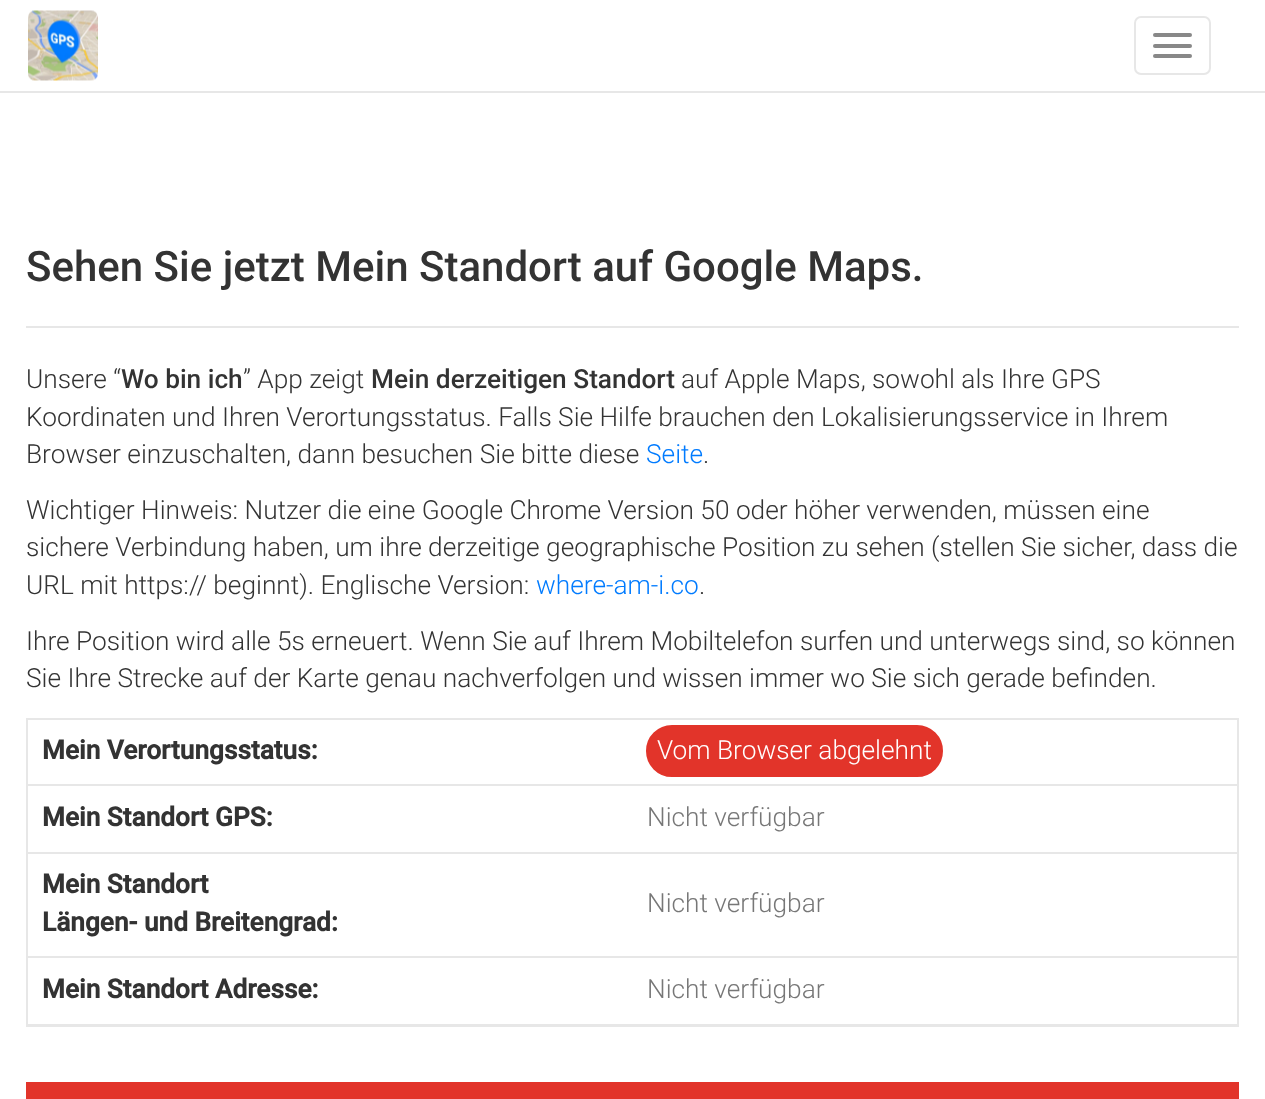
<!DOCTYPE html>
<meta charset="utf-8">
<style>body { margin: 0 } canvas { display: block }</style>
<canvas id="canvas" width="1265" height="1099"></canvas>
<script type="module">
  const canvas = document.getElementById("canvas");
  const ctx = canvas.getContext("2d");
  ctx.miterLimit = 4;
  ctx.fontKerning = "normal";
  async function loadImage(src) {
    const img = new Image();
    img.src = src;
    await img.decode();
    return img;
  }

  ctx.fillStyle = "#ffffff";
  ctx.fillRect(0, 0, 1265, 1099);
  ctx.fillStyle = "#e7e7e7";
  ctx.fillRect(0, 91, 1265, 2);
  ctx.drawImage(await loadImage("img1.png"), 28, 10, 70, 71);
  ctx.beginPath();
  ctx.roundRect(1135, 17, 75, 57, 6);
  ctx.strokeStyle = "#e7e7e7";
  ctx.lineWidth = 2;
  ctx.stroke();
  ctx.fillStyle = "#888888";
  ctx.beginPath();
  ctx.roundRect(1153, 33, 39, 4, 2);
  ctx.fill();
  ctx.beginPath();
  ctx.roundRect(1153, 44, 39, 4, 2);
  ctx.fill();
  ctx.beginPath();
  ctx.roundRect(1153, 54, 39, 4, 2);
  ctx.fill();
  ctx.fillStyle = "#e7e7e7";
  ctx.fillRect(26, 326, 1213, 2);
  ctx.font = "500 42px Roboto";
  ctx.fillStyle = "#333333";
  ctx.fillText("Sehen Sie jetzt Mein Standort auf Google Maps.", 26, 281);
  ctx.font = "300 26.25px Roboto";
  ctx.fillText("Unsere “", 26, 388);
  ctx.font = "500 26.25px Roboto";
  ctx.fillText("Wo bin ich", 121, 388);
  ctx.font = "300 26.25px Roboto";
  ctx.fillText("” App zeigt", 243, 388);
  ctx.font = "500 26.25px Roboto";
  ctx.fillText("Mein derzeitigen Standort", 371, 388);
  ctx.font = "300 26.25px Roboto";
  ctx.fillText("auf Apple Maps, sowohl als Ihre GPS", 681, 388);
  ctx.fillText("Koordinaten und Ihren Verortungsstatus. Falls Sie Hilfe brauchen den Lokalisierungsservice in Ihrem", 26, 426);
  ctx.fillText("Browser einzuschalten, dann besuchen Sie bitte diese", 26, 463);
  ctx.fillStyle = "#007bff";
  ctx.fillText("Seite", 646, 463);
  ctx.fillStyle = "#333333";
  ctx.fillText(".", 703, 463);
  ctx.fillText("Wichtiger Hinweis: Nutzer die eine Google Chrome Version 50 oder höher verwenden, müssen eine", 26, 519);
  ctx.fillText("sichere Verbindung haben, um ihre derzeitige geographische Position zu sehen (stellen Sie sicher, dass die", 26, 556);
  ctx.fillText("URL mit https:// beginnt). Englische Version:", 26, 594);
  ctx.fillStyle = "#007bff";
  ctx.fillText("where-am-i.co", 536, 594);
  ctx.fillStyle = "#333333";
  ctx.fillText(".", 699, 594);
  ctx.fillText("Ihre Position wird alle 5s erneuert. Wenn Sie auf Ihrem Mobiltelefon surfen und unterwegs sind, so können", 26, 650);
  ctx.fillText("Sie Ihre Strecke auf der Karte genau nachverfolgen und wissen immer wo Sie sich gerade befinden.", 26, 687);
  ctx.strokeRect(27, 719, 1211, 307);
  ctx.font = "bold 26.25px Roboto";
  ctx.fillText("Mein Verortungsstatus:", 42, 759);
  ctx.fillStyle = "#e7e7e7";
  ctx.fillRect(28, 784, 1209, 2);
  ctx.fillStyle = "#e2342a";
  ctx.beginPath();
  ctx.roundRect(647, 726, 295, 50, 25);
  ctx.fill();
  ctx.strokeStyle = "#e2342a";
  ctx.stroke();
  ctx.font = "300 26.25px Roboto";
  ctx.fillStyle = "#ffffff";
  ctx.fillText("Vom Browser abgelehnt", 657, 759);
  ctx.font = "bold 26.25px Roboto";
  ctx.fillStyle = "#333333";
  ctx.fillText("Mein Standort GPS:", 42, 826);
  ctx.fillStyle = "#e7e7e7";
  ctx.fillRect(28, 852, 1209, 2);
  ctx.font = "300 26.25px Roboto";
  ctx.fillStyle = "#777777";
  ctx.fillText("Nicht verfügbar", 647, 826);
  ctx.font = "bold 26.25px Roboto";
  ctx.fillStyle = "#333333";
  ctx.fillText("Mein Standort", 42, 893);
  ctx.fillText("Längen- und Breitengrad:", 42, 931);
  ctx.fillStyle = "#e7e7e7";
  ctx.fillRect(28, 956, 1209, 2);
  ctx.font = "300 26.25px Roboto";
  ctx.fillStyle = "#777777";
  ctx.fillText("Nicht verfügbar", 647, 912);
  ctx.font = "bold 26.25px Roboto";
  ctx.fillStyle = "#333333";
  ctx.fillText("Mein Standort Adresse:", 42, 998);
  ctx.fillStyle = "#e7e7e7";
  ctx.fillRect(28, 1024, 1209, 1);
  ctx.font = "300 26.25px Roboto";
  ctx.fillStyle = "#777777";
  ctx.fillText("Nicht verfügbar", 647, 998);
  ctx.fillStyle = "#e2342a";
  ctx.fillRect(26, 1082, 1213, 17);
</script>
